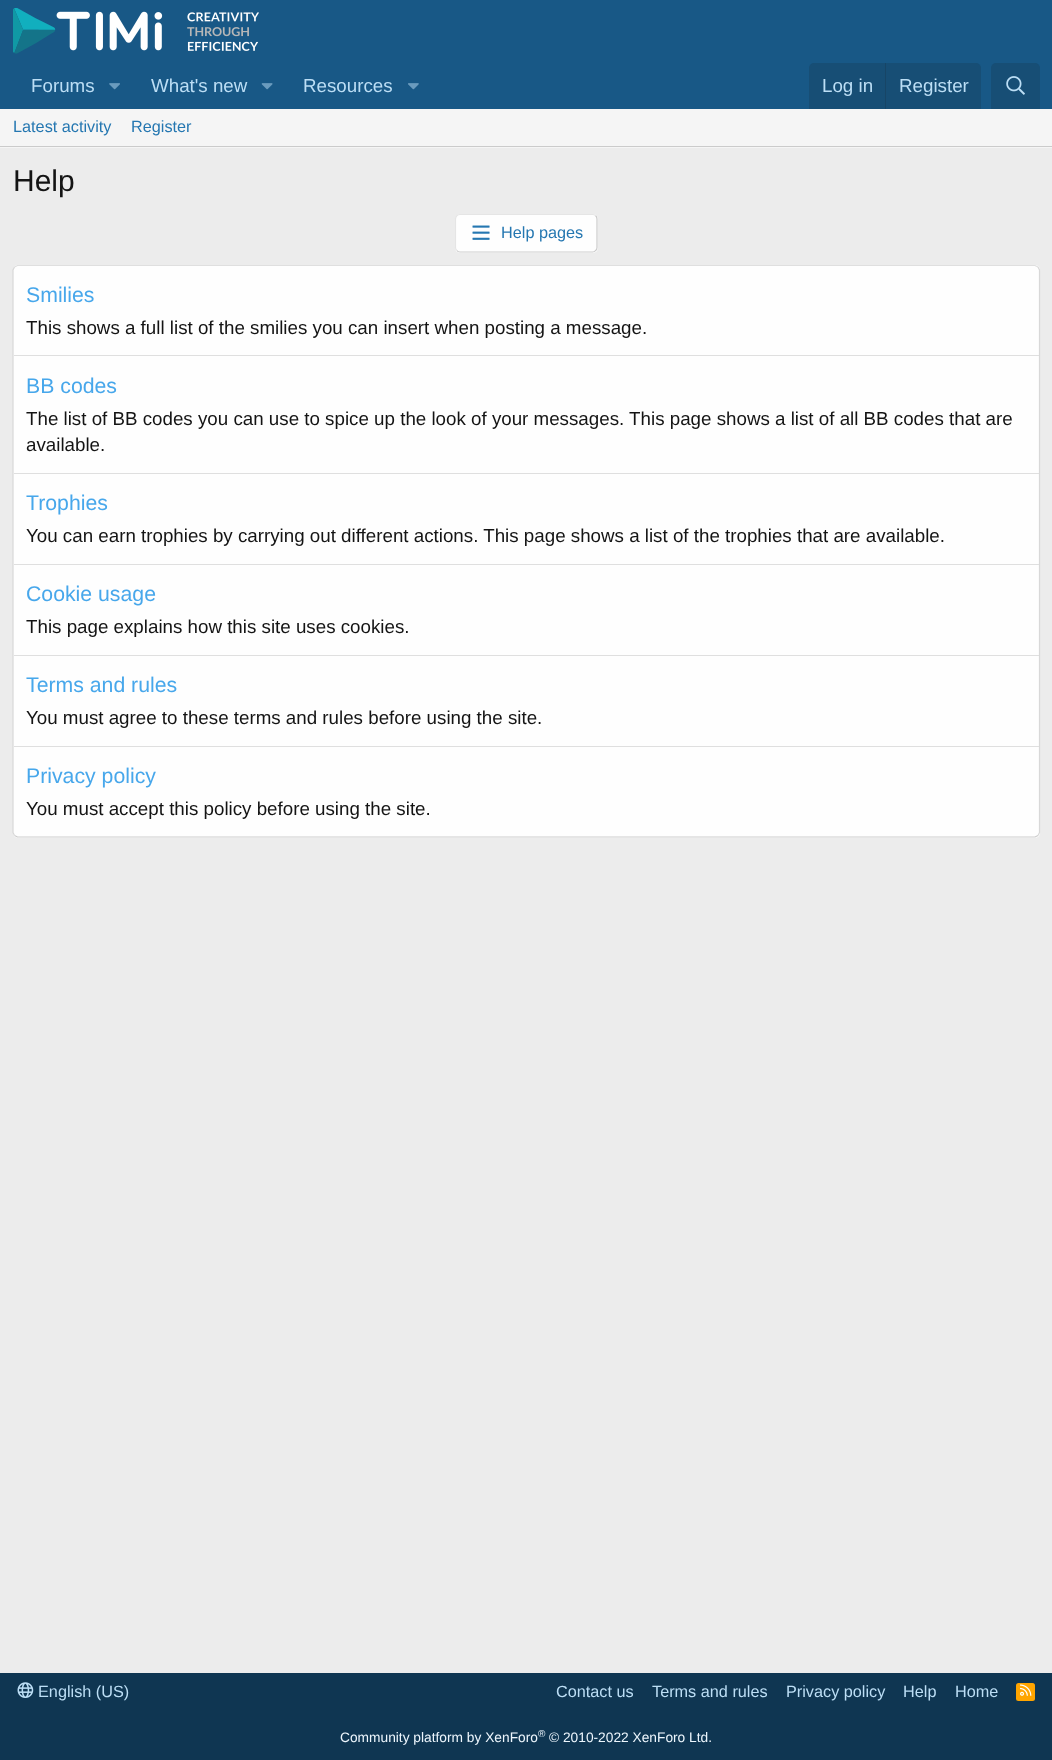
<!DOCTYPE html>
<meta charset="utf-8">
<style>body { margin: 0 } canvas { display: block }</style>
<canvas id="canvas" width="1052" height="1760"></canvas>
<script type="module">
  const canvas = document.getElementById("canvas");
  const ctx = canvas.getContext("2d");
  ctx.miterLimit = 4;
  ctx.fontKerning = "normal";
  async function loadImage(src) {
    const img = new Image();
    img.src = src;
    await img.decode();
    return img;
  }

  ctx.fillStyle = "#ececec";
  ctx.fillRect(0, 0, 1052, 1760);
  ctx.fillStyle = "#185886";
  ctx.fillRect(0, 0, 1052, 109);
  ctx.drawImage(await loadImage("img1.png"), 13, 8, 246, 46);
  ctx.font = "18.75px Liberation Sans";
  ctx.fillStyle = "#bcdef5";
  ctx.fillText("Forums", 31, 92);
  ctx.drawImage(await loadImage("img2.png"), 109, 83, 11, 7);
  ctx.fillText("What's new", 151, 92);
  ctx.drawImage(await loadImage("img3.png"), 261, 83, 12, 7);
  ctx.fillText("Resources", 303, 92);
  ctx.drawImage(await loadImage("img4.png"), 408, 83, 11, 7);
  ctx.fillStyle = "#174e75";
  ctx.beginPath();
  ctx.roundRect(809, 63, 172, 46, [5, 5, 0, 0]);
  ctx.fill();
  ctx.fillStyle = "#bcdef5";
  ctx.fillText("Log in", 822, 92);
  ctx.fillStyle = "#174566";
  ctx.fillRect(885, 63, 1, 46);
  ctx.fillStyle = "#bcdef5";
  ctx.fillText("Register", 899, 92);
  ctx.fillStyle = "#174e75";
  ctx.beginPath();
  ctx.roundRect(991, 63, 49, 46, [5, 5, 0, 0]);
  ctx.fill();
  ctx.drawImage(await loadImage("img5.png"), 1006, 76, 19, 19);
  ctx.fillStyle = "#f5f5f5";
  ctx.fillRect(0, 109, 1052, 39);
  ctx.fillStyle = "#cbcbcb";
  ctx.fillRect(0, 146, 1052, 1);
  ctx.font = "16.25px Liberation Sans";
  ctx.fillStyle = "#2577b1";
  ctx.fillText("Latest activity", 13, 132);
  ctx.fillText("Register", 131, 132);
  ctx.font = "30px Liberation Sans";
  ctx.fillStyle = "#141414";
  ctx.fillText("Help", 13, 191);
  ctx.fillStyle = "#fefefe";
  ctx.beginPath();
  ctx.roundRect(455, 214, 143, 39, 5);
  ctx.fill();
  ctx.beginPath();
  ctx.moveTo(595.5, 215.5);
  ctx.bezierCurveTo(596.5, 216.5, 597, 217.5, 597, 219);
  ctx.lineTo(597, 247.5);
  ctx.bezierCurveTo(597, 248.5, 596.5, 250, 595.5, 250.5);
  ctx.bezierCurveTo(595, 251.5, 593.5, 252, 592.5, 252);
  ctx.lineTo(460, 252);
  ctx.bezierCurveTo(459, 252, 457.5, 251.5, 457, 250.5);
  ctx.strokeStyle = "#cbcbcb";
  ctx.lineWidth = 1.2;
  ctx.stroke();
  ctx.beginPath();
  ctx.moveTo(457, 250.5);
  ctx.bezierCurveTo(456, 250, 455.5, 248.5, 455.5, 247.5);
  ctx.lineTo(455.5, 219);
  ctx.bezierCurveTo(455.5, 217.5, 456, 216.5, 457, 215.5);
  ctx.bezierCurveTo(457.5, 215, 459, 214.5, 460, 214.5);
  ctx.lineTo(592.5, 214.5);
  ctx.bezierCurveTo(593.5, 214.5, 595, 215, 595.5, 215.5);
  ctx.strokeStyle = "#e5e5e5";
  ctx.stroke();
  ctx.drawImage(await loadImage("img6.png"), 472, 225, 18, 15);
  ctx.font = "16.25px Liberation Sans";
  ctx.fillStyle = "#2577b1";
  ctx.fillText("Help pages", 501, 238);
  ctx.fillStyle = "#fefefe";
  ctx.beginPath();
  ctx.roundRect(13, 265, 1027, 573, 5);
  ctx.fill();
  ctx.beginPath();
  ctx.moveTo(14.5, 267);
  ctx.lineTo(17.5, 265.5);
  ctx.lineTo(1035, 265.5);
  ctx.lineTo(1038, 267);
  ctx.strokeStyle = "#dfdfdf";
  ctx.stroke();
  ctx.beginPath();
  ctx.moveTo(1038, 267);
  ctx.lineTo(1039.5, 270);
  ctx.lineTo(1039.5, 832.5);
  ctx.lineTo(1038, 835.5);
  ctx.strokeStyle = "#d8d8d8";
  ctx.stroke();
  ctx.beginPath();
  ctx.moveTo(1038, 835.5);
  ctx.lineTo(1035, 837);
  ctx.lineTo(17.5, 837);
  ctx.lineTo(14.5, 835.5);
  ctx.strokeStyle = "#cbcbcb";
  ctx.stroke();
  ctx.beginPath();
  ctx.moveTo(14.5, 835.5);
  ctx.lineTo(13, 832.5);
  ctx.lineTo(13, 270);
  ctx.lineTo(14.5, 267);
  ctx.strokeStyle = "#d8d8d8";
  ctx.stroke();
  ctx.font = "21.25px Liberation Sans";
  ctx.fillStyle = "#47a7eb";
  ctx.fillText("Smilies", 26, 302);
  ctx.font = "18.75px Liberation Sans";
  ctx.fillStyle = "#141414";
  ctx.fillText("This shows a full list of the smilies you can insert when posting a message.", 26, 334);
  ctx.fillStyle = "#dfdfdf";
  ctx.fillRect(14, 355, 1025, 1);
  ctx.font = "21.25px Liberation Sans";
  ctx.fillStyle = "#47a7eb";
  ctx.fillText("BB codes", 26, 393);
  ctx.font = "18.75px Liberation Sans";
  ctx.fillStyle = "#141414";
  ctx.fillText("The list of BB codes you can use to spice up the look of your messages. This page shows a list of all BB codes that are", 26, 425);
  ctx.fillText("available.", 26, 451);
  ctx.fillStyle = "#dfdfdf";
  ctx.fillRect(14, 473, 1025, 1);
  ctx.font = "21.25px Liberation Sans";
  ctx.fillStyle = "#47a7eb";
  ctx.fillText("Trophies", 26, 510);
  ctx.font = "18.75px Liberation Sans";
  ctx.fillStyle = "#141414";
  ctx.fillText("You can earn trophies by carrying out different actions. This page shows a list of the trophies that are available.", 26, 542);
  ctx.fillStyle = "#dfdfdf";
  ctx.fillRect(14, 564, 1025, 1);
  ctx.font = "21.25px Liberation Sans";
  ctx.fillStyle = "#47a7eb";
  ctx.fillText("Cookie usage", 26, 601);
  ctx.font = "18.75px Liberation Sans";
  ctx.fillStyle = "#141414";
  ctx.fillText("This page explains how this site uses cookies.", 26, 633);
  ctx.fillStyle = "#dfdfdf";
  ctx.fillRect(14, 655, 1025, 1);
  ctx.font = "21.25px Liberation Sans";
  ctx.fillStyle = "#47a7eb";
  ctx.fillText("Terms and rules", 26, 692);
  ctx.font = "18.75px Liberation Sans";
  ctx.fillStyle = "#141414";
  ctx.fillText("You must agree to these terms and rules before using the site.", 26, 724);
  ctx.fillStyle = "#dfdfdf";
  ctx.fillRect(14, 746, 1025, 1);
  ctx.font = "21.25px Liberation Sans";
  ctx.fillStyle = "#47a7eb";
  ctx.fillText("Privacy policy", 26, 783);
  ctx.font = "18.75px Liberation Sans";
  ctx.fillStyle = "#141414";
  ctx.fillText("You must accept this policy before using the site.", 26, 815);
  ctx.fillStyle = "#0f3652";
  ctx.fillRect(0, 1673, 1052, 87);
  ctx.drawImage(await loadImage("img7.png"), 17, 1682, 17, 16);
  ctx.font = "16.25px Liberation Sans";
  ctx.fillStyle = "#bcdef5";
  ctx.fillText("English (US)", 38, 1697);
  ctx.fillText("Contact us", 556, 1697);
  ctx.fillText("Terms and rules", 652, 1697);
  ctx.fillText("Privacy policy", 786, 1697);
  ctx.fillText("Help", 903, 1697);
  ctx.fillText("Home", 955, 1697);
  ctx.fillStyle = "#ffa500";
  ctx.beginPath();
  ctx.roundRect(1016, 1683, 19, 18, 2.5);
  ctx.fill();
  ctx.drawImage(await loadImage("img8.png"), 1020, 1684, 12, 12);
  ctx.font = "13.75px Liberation Sans";
  ctx.fillStyle = "#edf6fd";
  ctx.fillText("Community platform by XenForo", 340, 1742);
  ctx.font = "10px Liberation Sans";
  ctx.fillText("®", 538, 1737);
  ctx.font = "13.75px Liberation Sans";
  ctx.fillText("© 2010-2022 XenForo Ltd.", 549, 1742);
</script>
